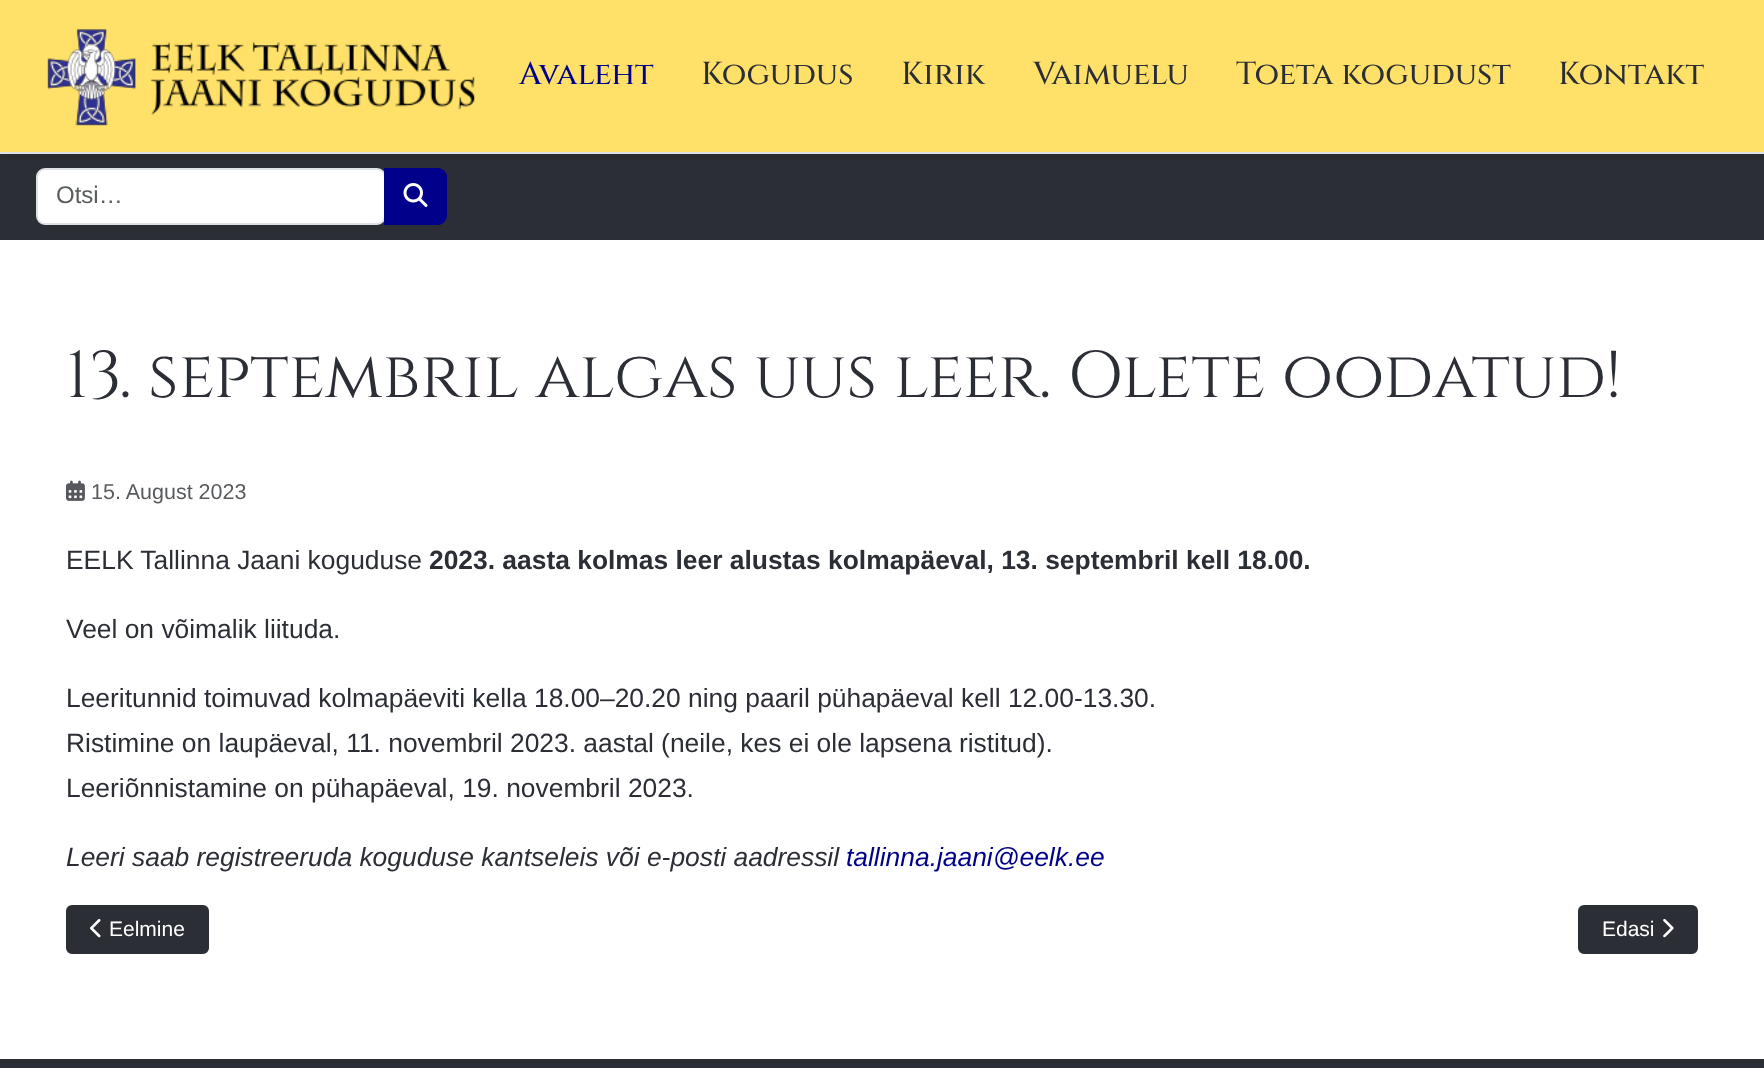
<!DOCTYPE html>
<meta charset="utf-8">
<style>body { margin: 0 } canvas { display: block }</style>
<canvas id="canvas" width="1764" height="1068"></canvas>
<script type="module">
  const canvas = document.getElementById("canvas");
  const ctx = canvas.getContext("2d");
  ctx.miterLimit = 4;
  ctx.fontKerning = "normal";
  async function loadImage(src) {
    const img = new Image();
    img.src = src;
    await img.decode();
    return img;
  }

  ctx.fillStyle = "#ffffff";
  ctx.fillRect(0, 0, 1764, 1068);
  ctx.fillStyle = "#2c2e36";
  ctx.fillRect(0, 154, 1764, 86);
  ctx.fillStyle = "rgba(0, 0, 0, 0.07)";
  ctx.filter = "blur(3px)";
  ctx.beginPath();
  ctx.rect(0, 3, 1764, 153);
  ctx.fill();
  ctx.filter = "none";
  ctx.fillStyle = "#ffe169";
  ctx.fillRect(0, 0, 1764, 152);
  ctx.fillStyle = "#dee2e6";
  ctx.fillRect(0, 152, 1764, 2);
  ctx.drawImage(await loadImage("img1.png"), 47, 29, 428, 97);
  ctx.font = "500 31.75px Cinzel";
  ctx.fillStyle = "#00008b";
  ctx.fillText("Avaleht", 519, 84);
  ctx.fillStyle = "#2c2e36";
  ctx.fillText("Kogudus", 701, 84);
  ctx.fillText("Kirik", 901, 84);
  ctx.fillText("Vaimuelu", 1033, 84);
  ctx.fillText("Toeta kogudust", 1236, 84);
  ctx.fillText("Kontakt", 1558, 84);
  ctx.fillStyle = "#ffffff";
  ctx.beginPath();
  ctx.roundRect(37, 169, 348, 55, 8);
  ctx.fill();
  ctx.strokeStyle = "#dee2e6";
  ctx.lineWidth = 2;
  ctx.stroke();
  ctx.font = "24px Liberation Sans";
  ctx.fillStyle = "#595c5f";
  ctx.fillText("Otsi…", 56, 203);
  ctx.fillStyle = "#00008b";
  ctx.beginPath();
  ctx.roundRect(385, 169, 61, 55, [0, 8, 8, 0]);
  ctx.fill();
  ctx.strokeStyle = "#00008b";
  ctx.stroke();
  ctx.drawImage(await loadImage("img2.png"), 403, 183, 25, 24);
  ctx.font = "66px Cinzel";
  ctx.fillStyle = "#2c2e36";
  ctx.fillText("13. septembril algas uus leer. Olete oodatud!", 66, 397);
  ctx.drawImage(await loadImage("img3.png"), 66, 480, 19, 21);
  ctx.font = "21.5px Liberation Sans";
  ctx.fillStyle = "#595c5f";
  ctx.fillText("15. August 2023", 91, 499);
  ctx.font = "26.4px Liberation Sans";
  ctx.fillStyle = "#2c2e36";
  ctx.fillText("EELK Tallinna Jaani koguduse", 66, 569);
  ctx.font = "bold 26.4px Liberation Sans";
  ctx.fillText("2023. aasta kolmas leer alustas kolmapäeval, 13. septembril kell 18.00.", 429, 569);
  ctx.font = "26.4px Liberation Sans";
  ctx.fillText("Veel on võimalik liituda.", 66, 638);
  ctx.fillText("Leeritunnid toimuvad kolmapäeviti kella 18.00–20.20 ning paaril pühapäeval kell 12.00-13.30.", 66, 707);
  ctx.fillText("Ristimine on laupäeval, 11. novembril 2023. aastal (neile, kes ei ole lapsena ristitud).", 66, 752);
  ctx.fillText("Leeriõnnistamine on pühapäeval, 19. novembril 2023.", 66, 797);
  ctx.font = "italic 26.4px Liberation Sans";
  ctx.fillText("Leeri saab registreeruda koguduse kantseleis või e-posti aadressil", 66, 866);
  ctx.fillStyle = "#00008b";
  ctx.fillText("tallinna.jaani@eelk.ee", 846, 866);
  ctx.fillStyle = "#2c2e36";
  ctx.beginPath();
  ctx.roundRect(67, 906, 141, 47, 5);
  ctx.fill();
  ctx.strokeStyle = "#2c2e36";
  ctx.stroke();
  ctx.drawImage(await loadImage("img4.png"), 90, 918, 11, 20);
  ctx.font = "21px Liberation Sans";
  ctx.fillStyle = "#ffffff";
  ctx.fillText("Eelmine", 109, 936);
  ctx.fillStyle = "#2c2e36";
  ctx.beginPath();
  ctx.roundRect(1579, 906, 118, 47, 5);
  ctx.fill();
  ctx.stroke();
  ctx.fillStyle = "#ffffff";
  ctx.fillText("Edasi", 1602, 936);
  ctx.drawImage(await loadImage("img5.png"), 1663, 918, 11, 20);
  ctx.fillStyle = "#2c2e36";
  ctx.fillRect(0, 1059, 1764, 9);
</script>
